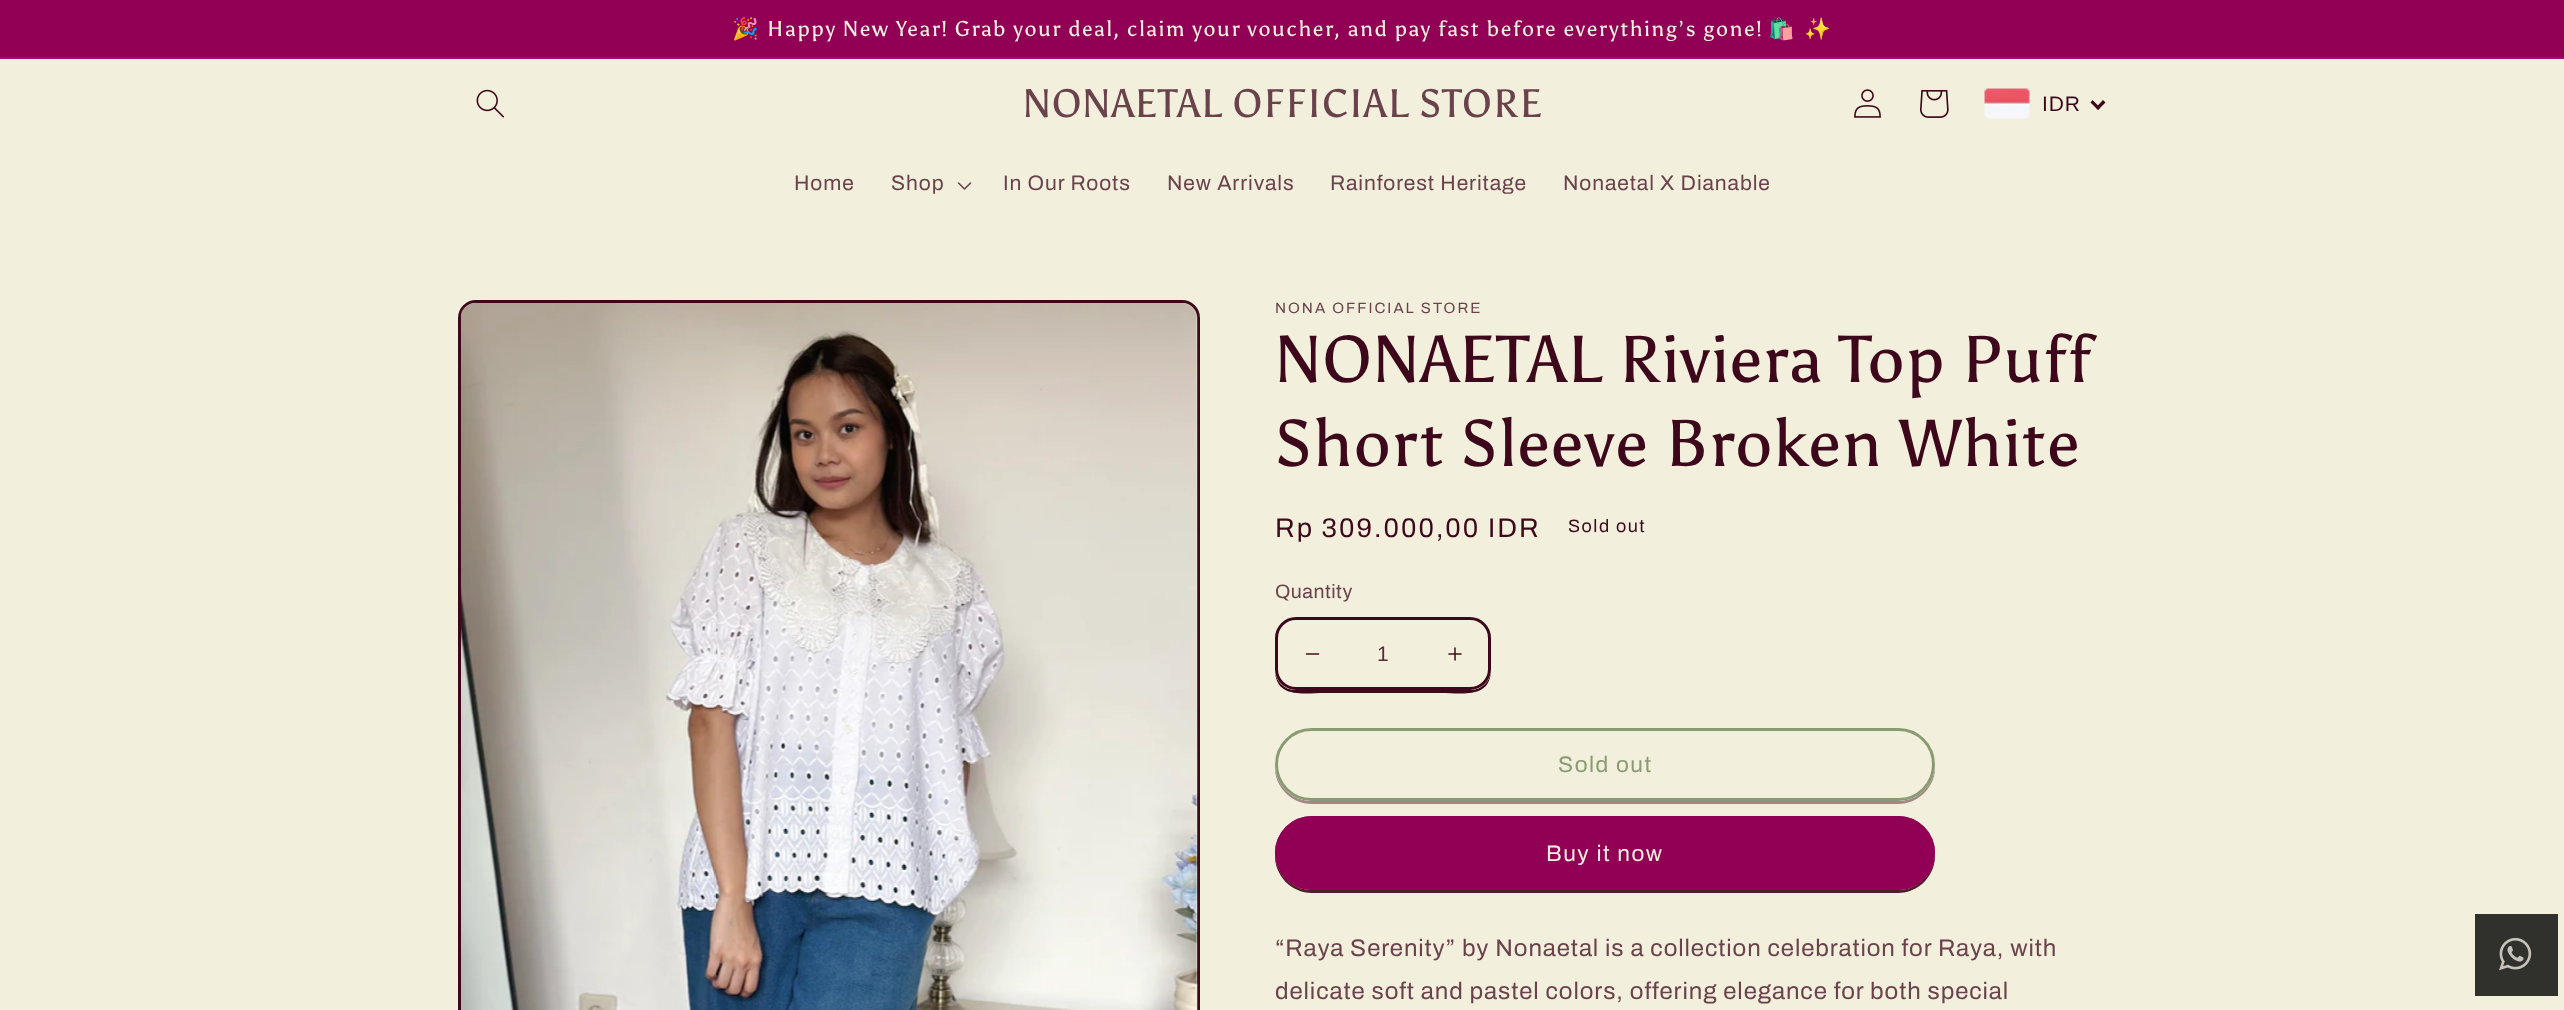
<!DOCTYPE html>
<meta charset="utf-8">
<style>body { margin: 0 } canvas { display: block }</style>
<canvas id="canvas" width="2564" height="1010"></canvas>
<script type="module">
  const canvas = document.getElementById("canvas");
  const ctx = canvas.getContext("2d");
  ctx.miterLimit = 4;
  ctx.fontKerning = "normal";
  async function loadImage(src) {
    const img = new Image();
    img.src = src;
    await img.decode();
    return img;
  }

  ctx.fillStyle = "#f2efdd";
  ctx.fillRect(0, 0, 2564, 1010);
  ctx.fillStyle = "#910054";
  ctx.fillRect(0, 0, 2564, 57);
  ctx.fillStyle = "#99135f";
  ctx.fillRect(0, 57, 2564, 2);
  ctx.letterSpacing = "1.5px";
  ctx.font = "21.45px Noto Color Emoji";
  ctx.fillStyle = "#f2efdd";
  ctx.fillText("🎉", 732, 36);
  ctx.font = "21.45px Asul";
  ctx.fillText("Happy New Year! Grab your deal, claim your voucher, and pay fast before everything’s gone!", 767, 36);
  ctx.font = "21.45px Noto Color Emoji";
  ctx.fillText("🛍️", 1768, 36);
  ctx.fillText("✨", 1804, 36);
  ctx.drawImage(await loadImage("img1.png"), 476, 89, 28, 29);
  ctx.letterSpacing = "1px";
  ctx.font = "39.6px Asul";
  ctx.fillStyle = "#6a424c";
  ctx.fillText("NONAETAL OFFICIAL STORE", 1023, 117);
  ctx.drawImage(await loadImage("img2.png"), 1854, 89, 27, 29);
  ctx.drawImage(await loadImage("img3.png"), 1920, 90, 29, 28);
  ctx.drawImage(await loadImage("img4.png"), 1984, 88, 46, 31);
  ctx.letterSpacing = "0.9px";
  ctx.font = "21px Liberation Sans";
  ctx.fillStyle = "#3d081b";
  ctx.fillText("IDR", 2042, 111);
  ctx.beginPath();
  ctx.moveTo(2103, 100);
  ctx.lineTo(2105.5, 102.5);
  ctx.lineTo(2098, 110);
  ctx.lineTo(2096, 107.5);
  ctx.closePath();
  ctx.fill();
  ctx.beginPath();
  ctx.moveTo(2092.5, 100);
  ctx.lineTo(2100, 107.5);
  ctx.lineTo(2098, 110);
  ctx.lineTo(2090.5, 102.5);
  ctx.closePath();
  ctx.fill();
  ctx.font = "21px Archivo";
  ctx.fillStyle = "#6a424c";
  ctx.fillText("Home", 794, 190);
  ctx.fillText("Shop", 891, 190);
  ctx.drawImage(await loadImage("img5.png"), 957, 182, 15, 8);
  ctx.fillText("In Our Roots", 1003, 190);
  ctx.fillText("New Arrivals", 1167, 190);
  ctx.fillText("Rainforest Heritage", 1330, 190);
  ctx.fillText("Nonaetal X Dianable", 1563, 190);
  ctx.beginPath();
  ctx.roundRect(459.5, 301.5, 739, 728, 16.5);
  ctx.strokeStyle = "#3d081b";
  ctx.lineWidth = 3;
  ctx.stroke();
  ctx.drawImage(await loadImage("img6.png"), 461, 303, 737, 707);
  ctx.letterSpacing = "2px";
  ctx.font = "15px Archivo";
  ctx.fillText("NONA OFFICIAL STORE", 1275, 313);
  ctx.letterSpacing = "1px";
  ctx.font = "66px Asul";
  ctx.fillStyle = "#3d081b";
  ctx.fillText("NONAETAL Riviera Top Puff", 1275, 382);
  ctx.fillText("Short Sleeve Broken White", 1275, 466);
  ctx.letterSpacing = "2px";
  ctx.font = "27px Archivo";
  ctx.fillText("Rp 309.000,00 IDR", 1275, 537);
  ctx.letterSpacing = "1.5px";
  ctx.font = "18px Archivo";
  ctx.fillText("Sold out", 1568, 532);
  ctx.letterSpacing = "0.5px";
  ctx.font = "19.5px Archivo";
  ctx.fillStyle = "#6a424c";
  ctx.fillText("Quantity", 1275, 598);
  ctx.fillStyle = "#3d081b";
  ctx.beginPath();
  ctx.moveTo(1275, 669);
  ctx.bezierCurveTo(1275, 699, 1303, 693, 1325, 693);
  ctx.lineTo(1441, 693);
  ctx.bezierCurveTo(1463, 693, 1491, 699, 1491, 669);
  ctx.bezierCurveTo(1491, 681, 1482, 690, 1470, 690);
  ctx.lineTo(1296, 690);
  ctx.bezierCurveTo(1284, 690, 1275, 681, 1275, 669);
  ctx.closePath();
  ctx.fill();
  ctx.fillStyle = "#f2efdd";
  ctx.beginPath();
  ctx.roundRect(1275, 617, 216, 73, 21);
  ctx.fill();
  ctx.drawImage(await loadImage("img7.png"), 1305, 653, 15, 2);
  ctx.drawImage(await loadImage("img8.png"), 1448, 647, 14, 14);
  ctx.beginPath();
  ctx.roundRect(1276.5, 618.5, 213, 70, 19.5);
  ctx.stroke();
  ctx.letterSpacing = "0px";
  ctx.font = "21px Liberation Sans";
  ctx.fillStyle = "#582b38";
  ctx.fillText("1", 1377, 661);
  ctx.fillStyle = "#a18886";
  ctx.beginPath();
  ctx.moveTo(1275, 766);
  ctx.bezierCurveTo(1274, 786, 1291, 804, 1312, 804);
  ctx.lineTo(1898, 804);
  ctx.bezierCurveTo(1919, 804, 1936, 786, 1935, 766);
  ctx.bezierCurveTo(1934, 785, 1918, 801, 1898, 801);
  ctx.lineTo(1312, 801);
  ctx.bezierCurveTo(1292, 801, 1276, 785, 1275, 766);
  ctx.closePath();
  ctx.fill();
  ctx.beginPath();
  ctx.roundRect(1276.5, 729.5, 657, 70, 35);
  ctx.strokeStyle = "#f2efdd";
  ctx.stroke();
  ctx.beginPath();
  ctx.roundRect(1276.5, 729.5, 657, 70, 35);
  ctx.strokeStyle = "#899b71";
  ctx.stroke();
  ctx.letterSpacing = "1.5px";
  ctx.font = "22.5px Archivo";
  ctx.fillStyle = "#899b71";
  ctx.fillText("Sold out", 1558, 772);
  ctx.fillStyle = "#4f1f2e";
  ctx.beginPath();
  ctx.moveTo(1275, 854);
  ctx.bezierCurveTo(1274, 875, 1291, 893, 1312, 893);
  ctx.lineTo(1898, 893);
  ctx.bezierCurveTo(1919, 893, 1936, 875, 1935, 854);
  ctx.bezierCurveTo(1934, 874, 1918, 890, 1898, 890);
  ctx.lineTo(1312, 890);
  ctx.bezierCurveTo(1292, 890, 1276, 874, 1275, 854);
  ctx.closePath();
  ctx.fill();
  ctx.fillStyle = "#910054";
  ctx.beginPath();
  ctx.roundRect(1275, 816, 660, 74, 37);
  ctx.fill();
  ctx.beginPath();
  ctx.roundRect(1276.5, 817.5, 657, 71, 35.5);
  ctx.strokeStyle = "#910054";
  ctx.stroke();
  ctx.fillStyle = "#f2efdd";
  ctx.fillText("Buy it now", 1546, 861);
  ctx.letterSpacing = "0.9px";
  ctx.font = "24px Archivo";
  ctx.fillStyle = "#6a424c";
  ctx.fillText("“Raya Serenity” by Nonaetal is a collection celebration for Raya, with", 1275, 956);
  ctx.fillText("delicate soft and pastel colors, offering elegance for both special", 1275, 999);
  ctx.fillStyle = "#30302c";
  ctx.fillRect(2475, 914, 83, 82);
  ctx.drawImage(await loadImage("img9.png"), 2499, 937, 33, 34);
</script>
